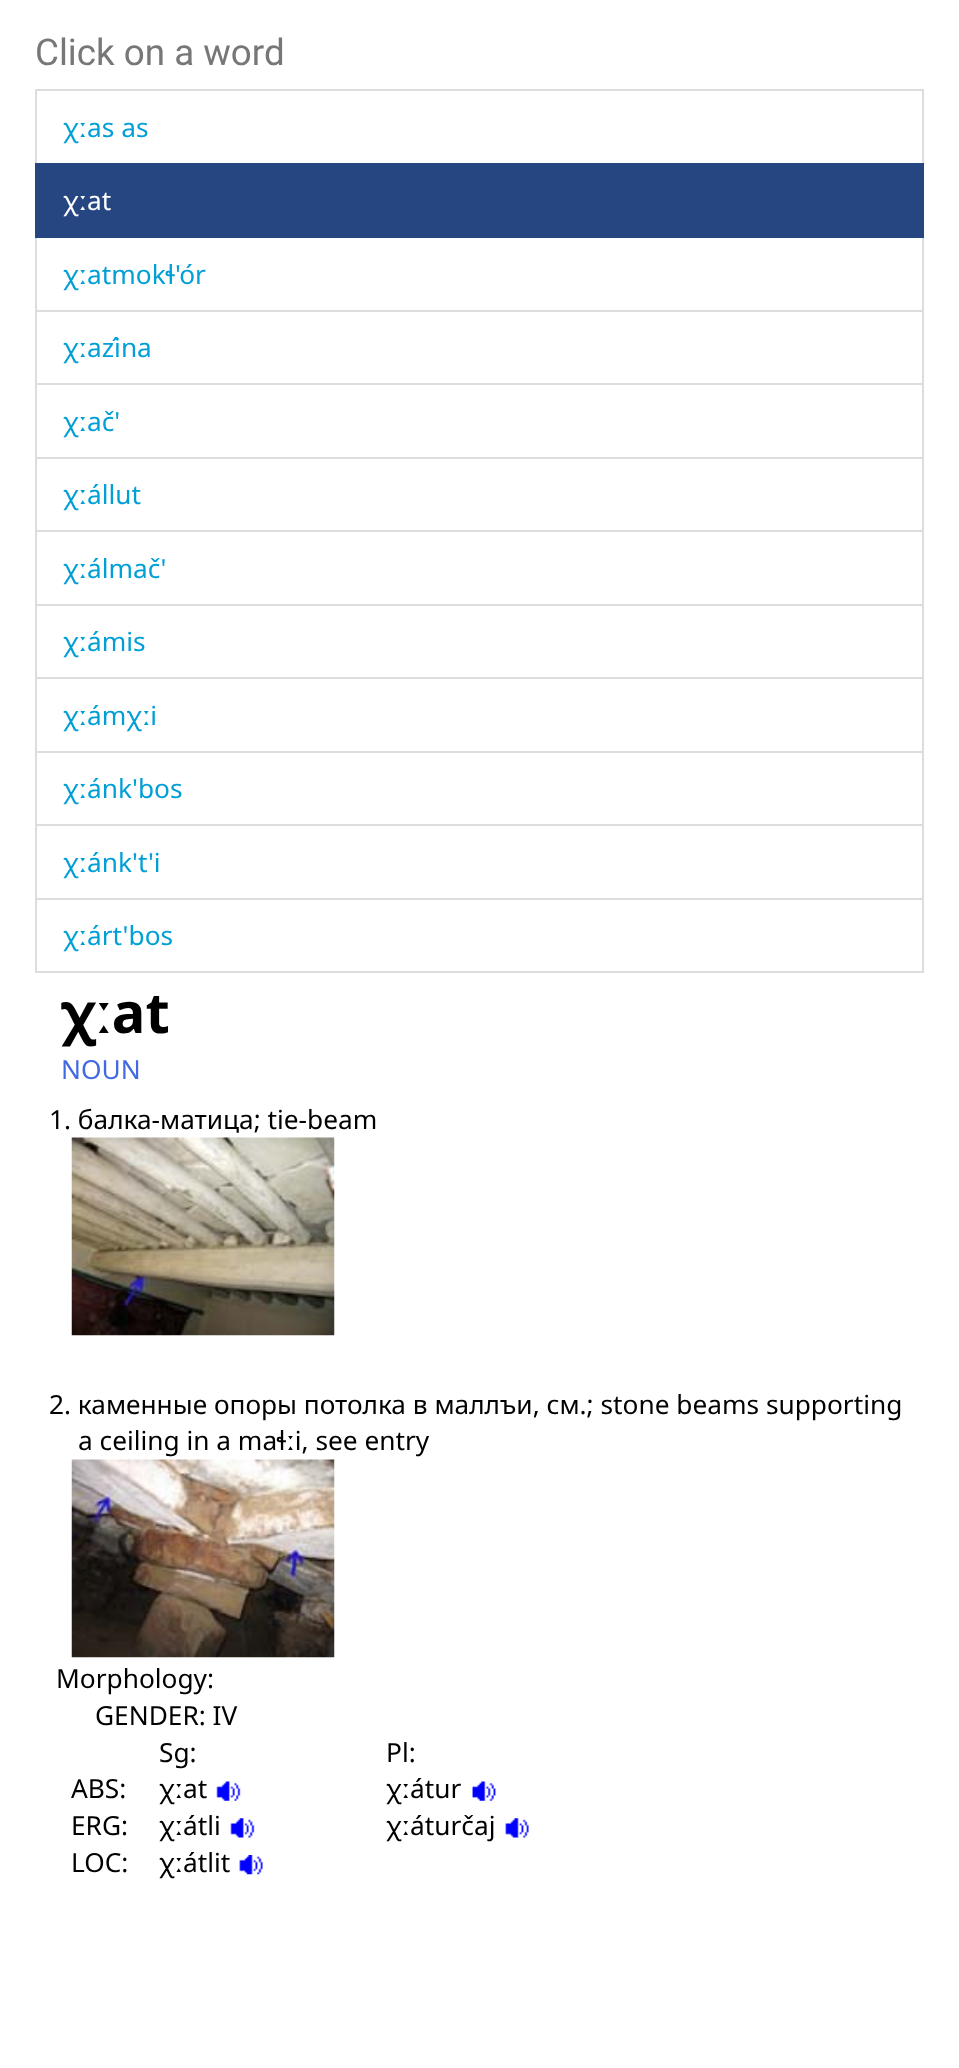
<!DOCTYPE html>
<meta charset="utf-8">
<style>body { margin: 0 } canvas { display: block }</style>
<canvas id="canvas" width="959" height="2068"></canvas>
<script type="module">
  const canvas = document.getElementById("canvas");
  const ctx = canvas.getContext("2d");
  ctx.miterLimit = 4;
  ctx.fontKerning = "normal";
  async function loadImage(src) {
    const img = new Image();
    img.src = src;
    await img.decode();
    return img;
  }

  ctx.fillStyle = "#ffffff";
  ctx.fillRect(0, 0, 959, 2068);
  ctx.font = "36.75px Roboto";
  ctx.fillStyle = "#777777";
  ctx.fillText("Click on a word", 35, 65);
  ctx.strokeStyle = "#dddddd";
  ctx.lineWidth = 2;
  ctx.strokeRect(36, 90, 887, 74);
  ctx.font = "26.25px Noto Sans";
  ctx.fillStyle = "#009fd6";
  ctx.fillText("χːas as", 63, 137);
  ctx.strokeRect(36, 237, 887, 74);
  ctx.fillStyle = "#264681";
  ctx.fillRect(35, 163, 889, 75);
  ctx.fillStyle = "#ffffff";
  ctx.fillText("χːat", 63, 210);
  ctx.fillStyle = "#009fd6";
  ctx.fillText("χːatmokɬ'ór", 63, 284);
  ctx.strokeRect(36, 311, 887, 73);
  ctx.fillText("χːazína", 63, 357);
  ctx.strokeRect(36, 384, 887, 74);
  ctx.fillText("χːač'", 63, 431);
  ctx.strokeRect(36, 458, 887, 73);
  ctx.fillText("χːállut", 63, 504);
  ctx.strokeRect(36, 531, 887, 74);
  ctx.fillText("χːálmač'", 63, 578);
  ctx.strokeRect(36, 605, 887, 73);
  ctx.fillText("χːámis", 63, 651);
  ctx.strokeRect(36, 678, 887, 74);
  ctx.fillText("χːámχːi", 63, 725);
  ctx.strokeRect(36, 752, 887, 73);
  ctx.fillText("χːánk'bos", 63, 798);
  ctx.strokeRect(36, 825, 887, 74);
  ctx.fillText("χːánk't'i", 63, 872);
  ctx.strokeRect(36, 899, 887, 73);
  ctx.fillText("χːárt'bos", 63, 945);
  ctx.font = "bold 56px Noto Sans";
  ctx.fillStyle = "#000000";
  ctx.fillText("χːat", 61, 1033);
  ctx.font = "26.25px Noto Sans";
  ctx.fillStyle = "#4169e1";
  ctx.fillText("NOUN", 61, 1079);
  ctx.fillStyle = "#000000";
  ctx.fillText("1. балка-матица; tie-beam", 49, 1129);
  ctx.drawImage(await loadImage("img1.png"), 71, 1137, 264, 199);
  ctx.fillText("2. каменные опоры потолка в маллъи, см.; stone beams supporting", 49, 1414);
  ctx.fillText("a ceiling in a maɬːi, see entry", 78, 1450);
  ctx.drawImage(await loadImage("img2.png"), 71, 1459, 264, 199);
  ctx.fillText("Morphology:", 56, 1688);
  ctx.fillText("GENDER: IV", 95, 1725);
  ctx.fillText("Sg:", 159, 1762);
  ctx.fillText("Pl:", 386, 1762);
  ctx.fillText("ABS:", 71, 1798);
  ctx.fillText("χːat", 159, 1798);
  ctx.drawImage(await loadImage("img3.png"), 216, 1781, 25, 20);
  ctx.fillText("χːátur", 386, 1798);
  ctx.drawImage(await loadImage("img4.png"), 472, 1781, 24, 20);
  ctx.fillText("ERG:", 71, 1835);
  ctx.fillText("χːátli", 159, 1835);
  ctx.drawImage(await loadImage("img5.png"), 230, 1818, 25, 20);
  ctx.fillText("χːáturčaj", 386, 1835);
  ctx.drawImage(await loadImage("img6.png"), 505, 1818, 24, 20);
  ctx.fillText("LOC:", 71, 1872);
  ctx.fillText("χːátlit", 159, 1872);
  ctx.drawImage(await loadImage("img7.png"), 239, 1855, 24, 20);
</script>
